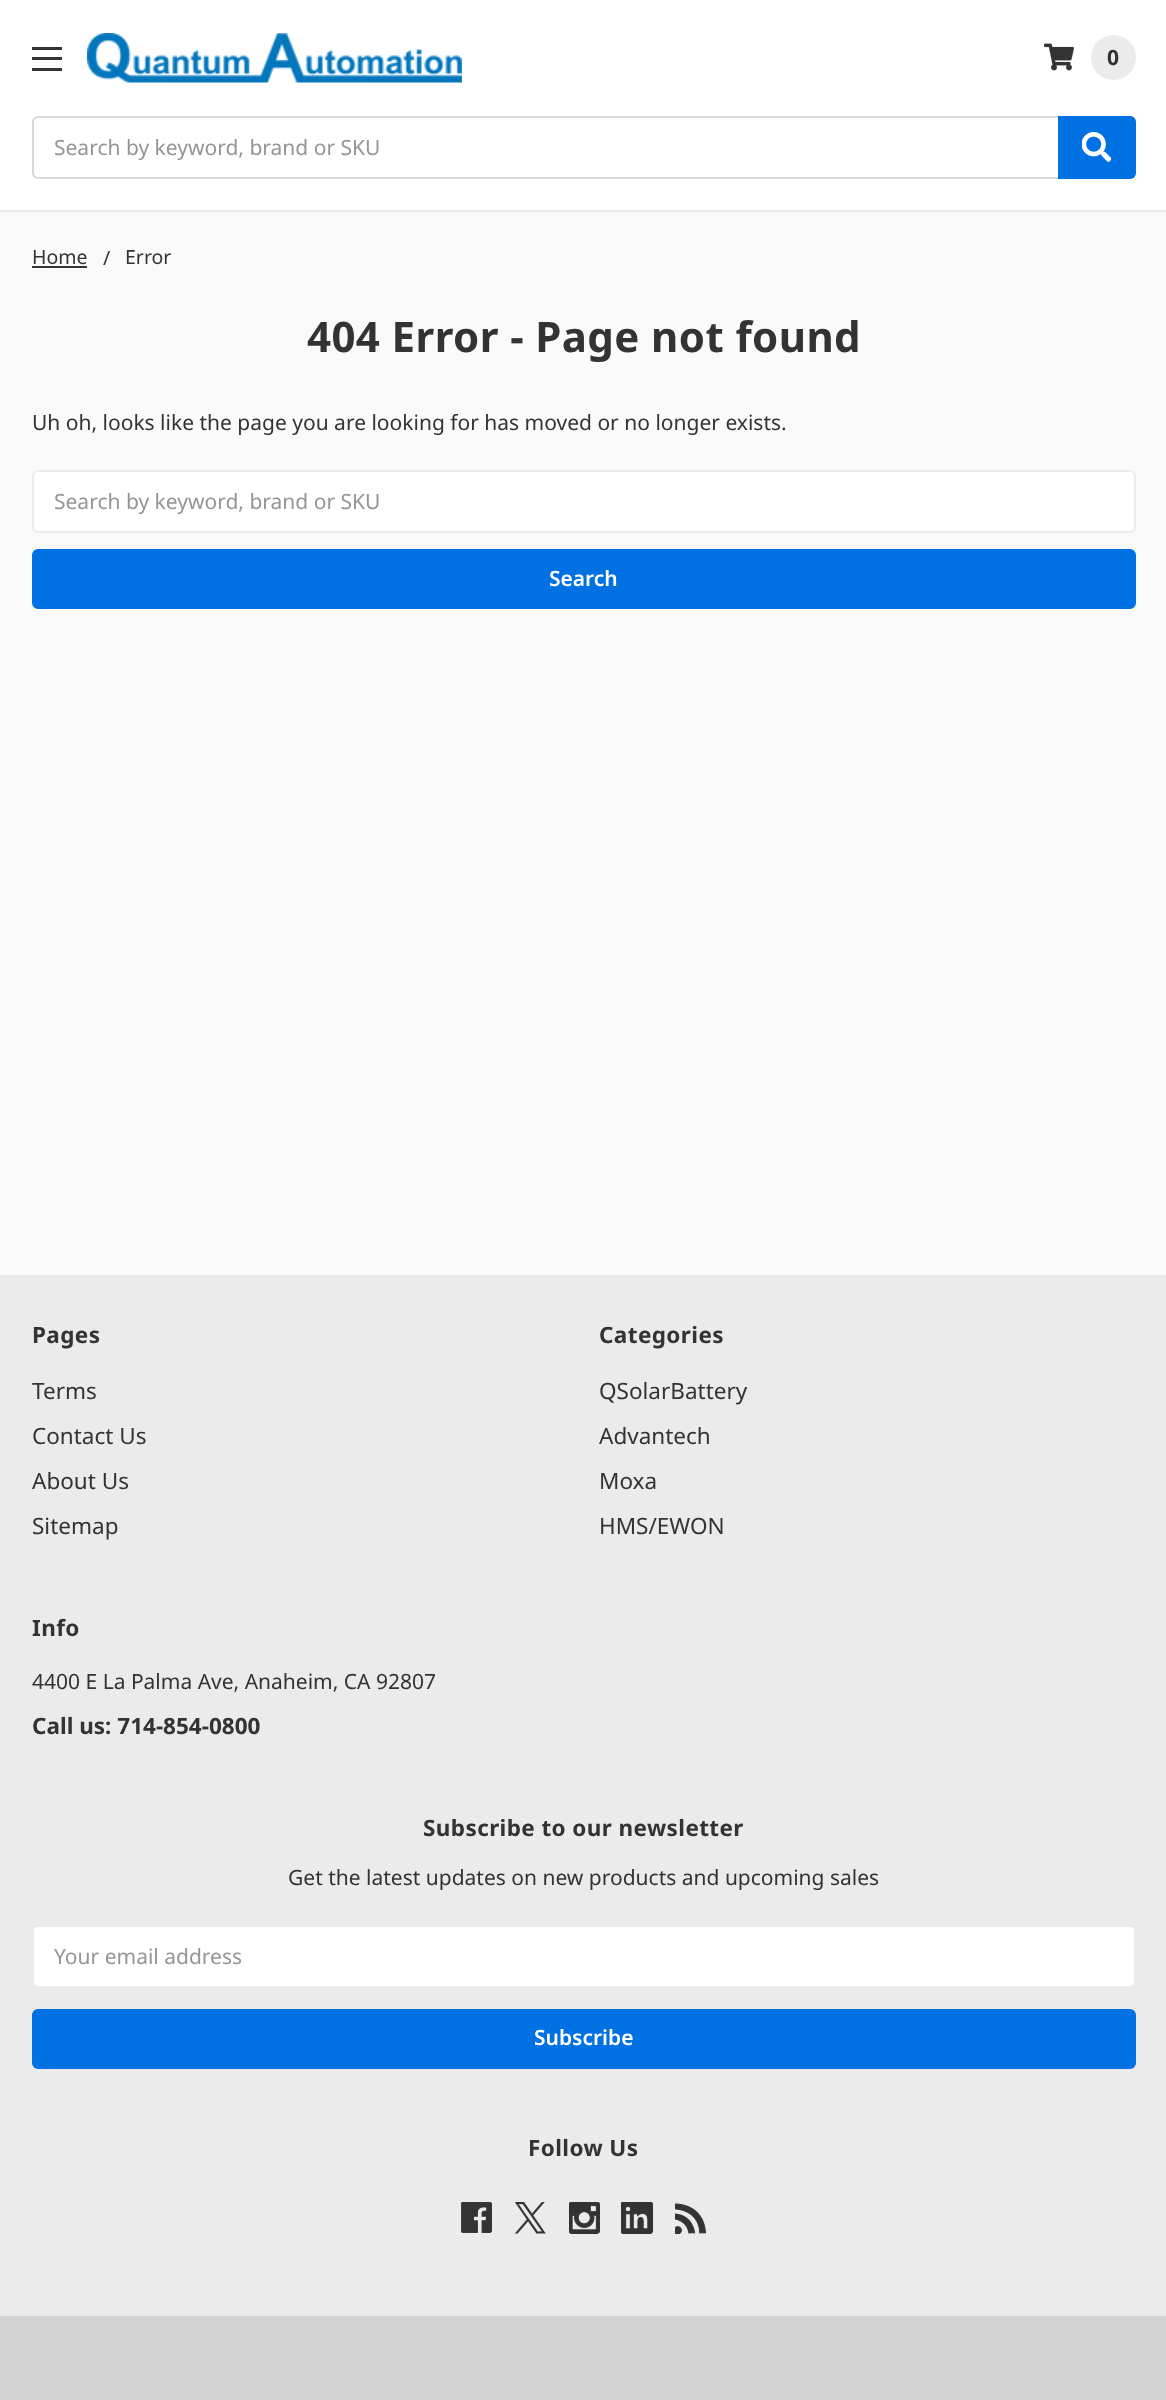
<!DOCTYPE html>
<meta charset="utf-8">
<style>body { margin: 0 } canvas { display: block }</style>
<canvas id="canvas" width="1166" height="2400"></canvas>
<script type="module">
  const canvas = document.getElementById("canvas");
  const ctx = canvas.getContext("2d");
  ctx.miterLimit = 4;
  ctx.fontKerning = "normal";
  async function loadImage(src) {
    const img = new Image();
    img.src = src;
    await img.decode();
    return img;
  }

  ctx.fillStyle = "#fafafa";
  ctx.fillRect(0, 0, 1166, 2400);
  ctx.fillStyle = "#ffffff";
  ctx.fillRect(0, 0, 1166, 210);
  ctx.fillStyle = "#ebebeb";
  ctx.fillRect(0, 210, 1166, 2);
  ctx.fillStyle = "#333333";
  ctx.fillRect(32, 57, 30, 3);
  ctx.fillRect(32, 47, 30, 3);
  ctx.fillRect(32, 68, 30, 3);
  ctx.drawImage(await loadImage("img1.png"), 87, 33, 375, 50);
  ctx.drawImage(await loadImage("img2.png"), 1044, 43, 30, 28);
  ctx.fillStyle = "#ebebeb";
  ctx.beginPath();
  ctx.arc(1113.5, 57.5, 22.5, 0, Math.PI * 2);
  ctx.fill();
  ctx.font = "bold 21px Noto Sans";
  ctx.fillStyle = "#333333";
  ctx.fillText("0", 1107, 65);
  ctx.fillStyle = "#d9d9d9";
  ctx.beginPath();
  ctx.moveTo(38, 116);
  ctx.bezierCurveTo(35, 116, 32, 119, 32, 122);
  ctx.lineTo(32, 173);
  ctx.bezierCurveTo(32, 176, 35, 179, 38, 179);
  ctx.lineTo(1130, 179);
  ctx.bezierCurveTo(1133, 179, 1136, 176, 1136, 173);
  ctx.lineTo(1136, 122);
  ctx.bezierCurveTo(1136, 119, 1133, 116, 1130, 116);
  ctx.closePath();
  ctx.moveTo(38, 118);
  ctx.bezierCurveTo(36, 118, 34, 120, 34, 122);
  ctx.lineTo(34, 173);
  ctx.bezierCurveTo(34, 175, 36, 177, 38, 177);
  ctx.lineTo(1134, 177);
  ctx.lineTo(1134, 118);
  ctx.closePath();
  ctx.fill("evenodd");
  ctx.font = "21px Noto Sans";
  ctx.fillStyle = "#959595";
  ctx.fillText("Search by keyword, brand or SKU", 54, 155);
  ctx.fillStyle = "#0071e3";
  ctx.beginPath();
  ctx.roundRect(1058, 116, 78, 63, [0, 6, 6, 0]);
  ctx.fill();
  ctx.drawImage(await loadImage("img3.png"), 1082, 132, 29, 30);
  ctx.font = "19.5px Noto Sans";
  ctx.fillStyle = "#333333";
  ctx.fillText("Home", 32, 264);
  ctx.fillRect(32, 266, 55, 2);
  ctx.fillText("/", 103, 265);
  ctx.fillText("Error", 125, 264);
  ctx.letterSpacing = "0.4px";
  ctx.font = "bold 42px Noto Sans";
  ctx.fillText("404 Error - Page not found", 307, 352);
  ctx.letterSpacing = "0px";
  ctx.font = "21px Noto Sans";
  ctx.fillText("Uh oh, looks like the page you are looking for has moved or no longer exists.", 32, 430);
  ctx.fillStyle = "#ffffff";
  ctx.beginPath();
  ctx.roundRect(33, 471, 1102, 61, 5);
  ctx.fill();
  ctx.strokeStyle = "#ebebeb";
  ctx.lineWidth = 2;
  ctx.stroke();
  ctx.fillStyle = "#959595";
  ctx.fillText("Search by keyword, brand or SKU", 54, 509);
  ctx.fillStyle = "#0071e3";
  ctx.beginPath();
  ctx.roundRect(33, 550, 1102, 58, 5);
  ctx.fill();
  ctx.strokeStyle = "#0071e3";
  ctx.stroke();
  ctx.font = "600 21px Noto Sans";
  ctx.fillStyle = "#ffffff";
  ctx.fillText("Search", 549, 586);
  ctx.fillStyle = "#ebebeb";
  ctx.fillRect(0, 1275, 1166, 1041);
  ctx.letterSpacing = "0.4px";
  ctx.font = "bold 22.5px Noto Sans";
  ctx.fillStyle = "#333333";
  ctx.fillText("Pages", 32, 1343);
  ctx.letterSpacing = "0px";
  ctx.font = "22.5px Noto Sans";
  ctx.fillText("Terms", 32, 1399);
  ctx.fillText("Contact Us", 32, 1444);
  ctx.fillText("About Us", 32, 1489);
  ctx.fillText("Sitemap", 32, 1534);
  ctx.letterSpacing = "0.4px";
  ctx.font = "bold 22.5px Noto Sans";
  ctx.fillText("Categories", 599, 1343);
  ctx.letterSpacing = "0px";
  ctx.font = "22.5px Noto Sans";
  ctx.fillText("QSolarBattery", 599, 1399);
  ctx.fillText("Advantech", 599, 1444);
  ctx.fillText("Moxa", 599, 1489);
  ctx.fillText("HMS/EWON", 599, 1534);
  ctx.letterSpacing = "0.4px";
  ctx.font = "bold 22.5px Noto Sans";
  ctx.fillText("Info", 32, 1636);
  ctx.letterSpacing = "0px";
  ctx.font = "21px Noto Sans";
  ctx.fillText("4400 E La Palma Ave, Anaheim, CA 92807", 32, 1689);
  ctx.font = "bold 22.5px Noto Sans";
  ctx.fillText("Call us: 714-854-0800", 32, 1734);
  ctx.letterSpacing = "0.4px";
  ctx.fillText("Subscribe to our newsletter", 423, 1836);
  ctx.letterSpacing = "0px";
  ctx.font = "21px Noto Sans";
  ctx.fillText("Get the latest updates on new products and upcoming sales", 288, 1885);
  ctx.fillStyle = "#ffffff";
  ctx.beginPath();
  ctx.roundRect(33, 1926, 1102, 61, 5);
  ctx.fill();
  ctx.strokeStyle = "#ebebeb";
  ctx.stroke();
  ctx.fillStyle = "#959595";
  ctx.fillText("Your email address", 54, 1964);
  ctx.fillStyle = "#0071e3";
  ctx.beginPath();
  ctx.roundRect(33, 2010, 1102, 58, 5);
  ctx.fill();
  ctx.strokeStyle = "#0071e3";
  ctx.stroke();
  ctx.font = "600 21px Noto Sans";
  ctx.fillStyle = "#ffffff";
  ctx.fillText("Subscribe", 534, 2045);
  ctx.letterSpacing = "0.4px";
  ctx.font = "bold 22.5px Noto Sans";
  ctx.fillStyle = "#333333";
  ctx.fillText("Follow Us", 528, 2156);
  ctx.drawImage(await loadImage("img4.png"), 461, 2202, 31, 31);
  ctx.drawImage(await loadImage("img5.png"), 515, 2202, 31, 32);
  ctx.drawImage(await loadImage("img6.png"), 569, 2202, 31, 32);
  ctx.drawImage(await loadImage("img7.png"), 621, 2202, 32, 32);
  ctx.drawImage(await loadImage("img8.png"), 675, 2203, 31, 31);
  ctx.fillStyle = "#d2d2d2";
  ctx.fillRect(0, 2316, 1166, 84);
</script>
